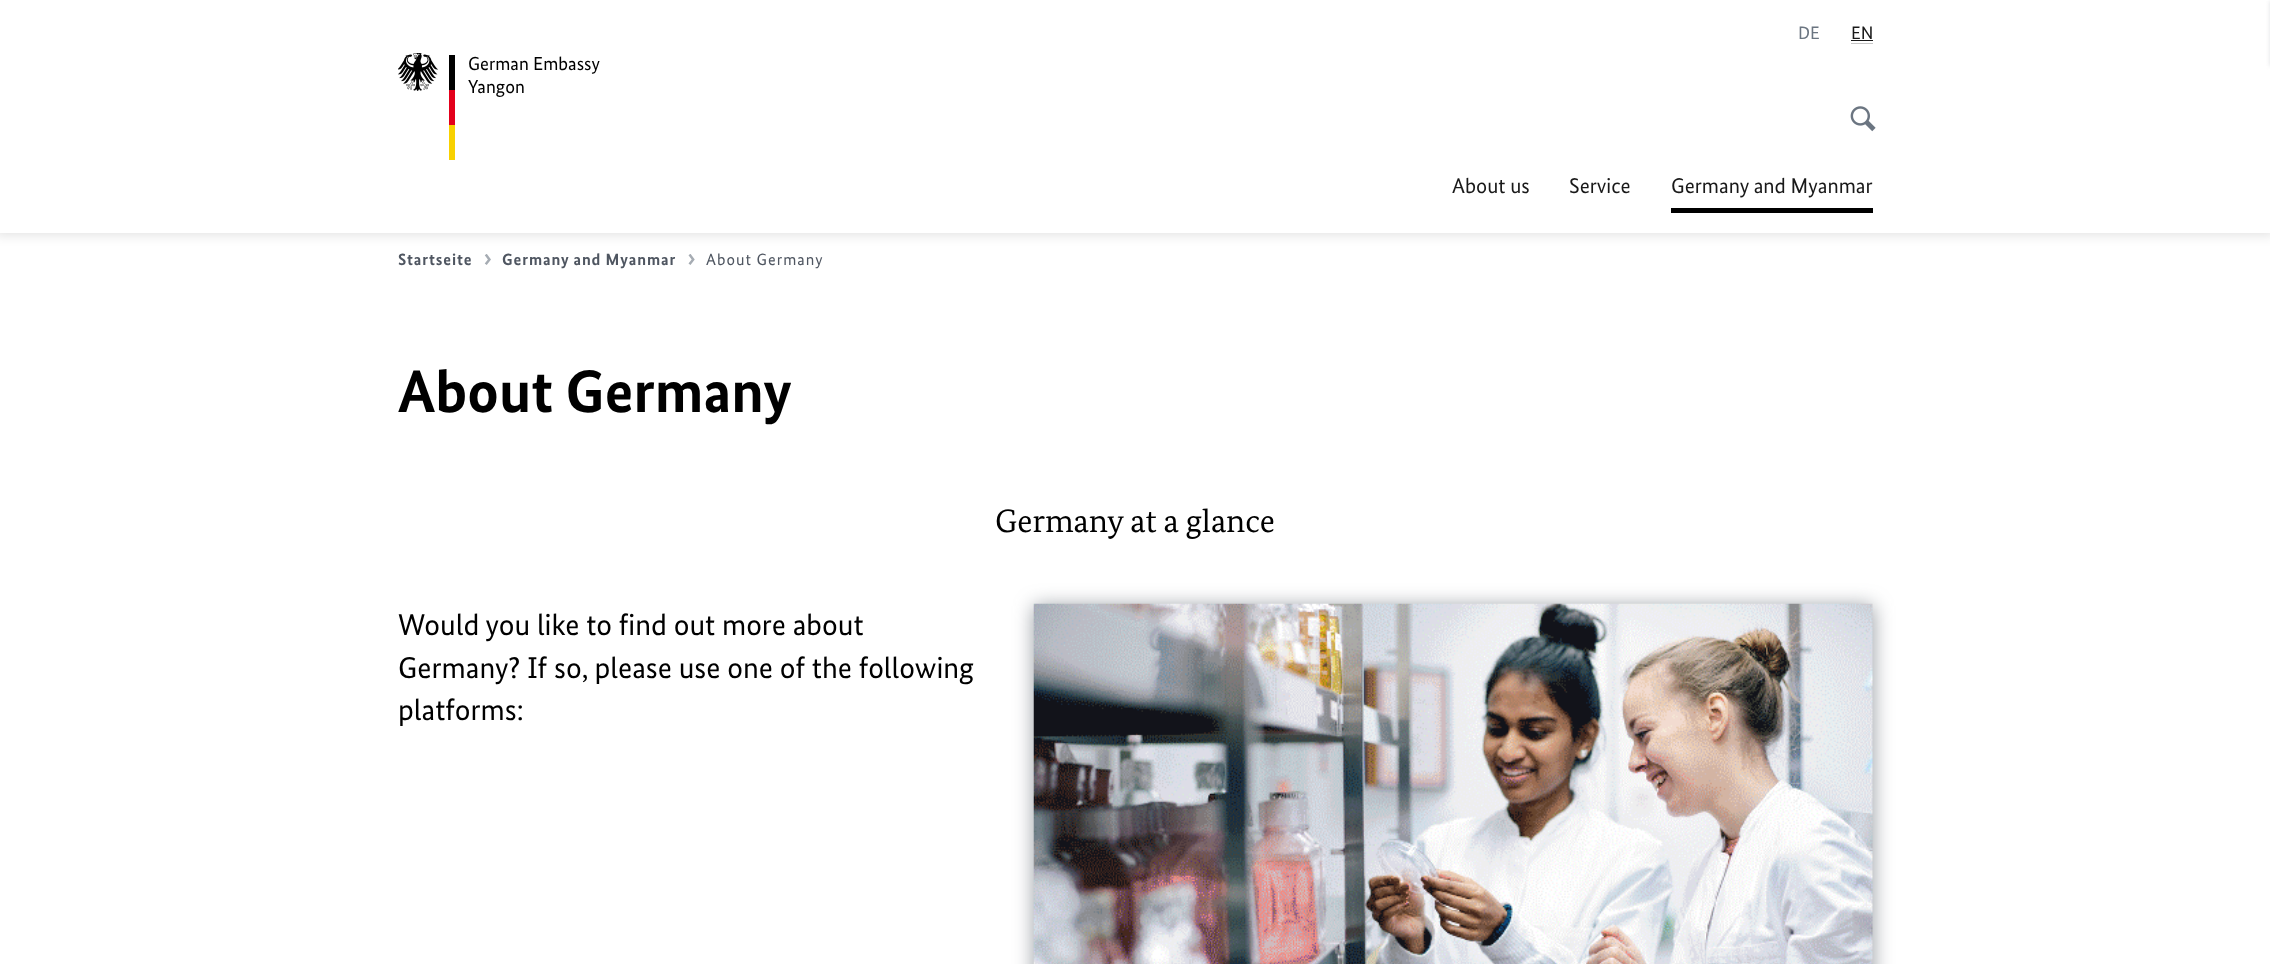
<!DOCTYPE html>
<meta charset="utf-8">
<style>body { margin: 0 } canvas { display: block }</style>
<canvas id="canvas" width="2270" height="964"></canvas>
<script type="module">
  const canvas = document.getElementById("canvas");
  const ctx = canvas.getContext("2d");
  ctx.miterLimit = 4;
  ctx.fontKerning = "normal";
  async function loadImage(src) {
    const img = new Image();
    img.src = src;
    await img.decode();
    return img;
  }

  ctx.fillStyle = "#ffffff";
  ctx.fillRect(0, 0, 2270, 964);
  ctx.save();
  ctx.beginPath();
  ctx.moveTo(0, 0);
  ctx.lineTo(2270, 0);
  ctx.lineTo(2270, 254);
  ctx.lineTo(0, 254);
  ctx.closePath();
  ctx.moveTo(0, 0);
  ctx.lineTo(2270, 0);
  ctx.lineTo(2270, 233);
  ctx.lineTo(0, 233);
  ctx.closePath();
  ctx.clip("evenodd");
  ctx.fillStyle = "rgba(0, 0, 0, 0.1)";
  ctx.filter = "blur(5.5px)";
  ctx.beginPath();
  ctx.rect(-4, -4, 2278, 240);
  ctx.fill();
  ctx.filter = "none";
  ctx.restore();
  ctx.drawImage(await loadImage("img1.png"), 398, 53, 57, 107);
  ctx.font = "18.75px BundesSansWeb";
  ctx.fillStyle = "#000000";
  ctx.fillText("German Embassy", 468, 70);
  ctx.fillText("Yangon", 468, 93);
  ctx.font = "18px BundesSansWeb";
  ctx.fillStyle = "#6b7581";
  ctx.fillText("DE", 1798, 39);
  ctx.fillStyle = "#191919";
  ctx.fillText("EN", 1851, 39);
  ctx.fillRect(1851, 40, 22, 1);
  ctx.fillStyle = "#c6c6c6";
  ctx.fillRect(1851, 43, 22, 1);
  ctx.drawImage(await loadImage("img2.png"), 1850, 106, 26, 26);
  ctx.font = "21.25px BundesSansWeb";
  ctx.fillStyle = "#191919";
  ctx.fillText("About us", 1452, 193);
  ctx.fillText("Service", 1569, 193);
  ctx.fillText("Germany and Myanmar", 1671, 193);
  ctx.fillStyle = "#000000";
  ctx.fillRect(1671, 208, 202, 5);
  ctx.fillStyle = "#e0e2e4";
  ctx.filter = "blur(2px)";
  ctx.beginPath();
  ctx.rect(2270, 1, 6, 65);
  ctx.fill();
  ctx.filter = "none";
  ctx.letterSpacing = "0.9px";
  ctx.font = "bold 16.25px BundesSansWeb";
  ctx.fillStyle = "#4f5661";
  ctx.fillText("Startseite", 398, 265);
  ctx.drawImage(await loadImage("img3.png"), 484, 254, 7, 11);
  ctx.fillText("Germany and Myanmar", 502, 265);
  ctx.drawImage(await loadImage("img4.png"), 688, 254, 7, 11);
  ctx.letterSpacing = "1px";
  ctx.font = "16.25px BundesSansWeb";
  ctx.fillText("About Germany", 706, 265);
  ctx.letterSpacing = "0px";
  ctx.font = "bold 60px BundesSansWeb";
  ctx.fillStyle = "#000000";
  ctx.fillText("About Germany", 398, 412);
  ctx.font = "32.5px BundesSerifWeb";
  ctx.fillText("Germany at a glance", 995, 532);
  ctx.font = "30px BundesSansWeb";
  ctx.fillText("Would you like to find out more about", 398, 635);
  ctx.fillText("Germany? If so, please use one of the following", 398, 678);
  ctx.fillText("platforms:", 398, 720);
  ctx.fillStyle = "rgba(79, 86, 97, 0.6)";
  ctx.filter = "blur(10px)";
  ctx.beginPath();
  ctx.rect(1034, 606, 839, 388);
  ctx.fill();
  ctx.filter = "none";
  ctx.drawImage(await loadImage("img5.png"), 1033, 603, 840, 361);
</script>
